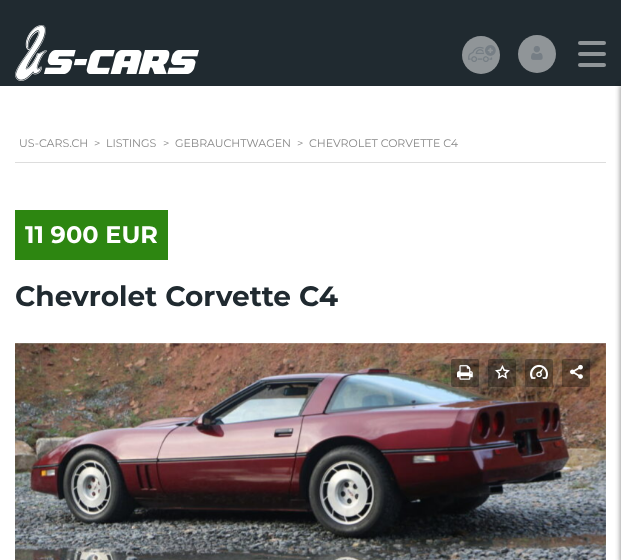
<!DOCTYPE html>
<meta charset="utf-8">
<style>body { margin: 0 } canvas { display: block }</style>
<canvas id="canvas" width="621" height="560"></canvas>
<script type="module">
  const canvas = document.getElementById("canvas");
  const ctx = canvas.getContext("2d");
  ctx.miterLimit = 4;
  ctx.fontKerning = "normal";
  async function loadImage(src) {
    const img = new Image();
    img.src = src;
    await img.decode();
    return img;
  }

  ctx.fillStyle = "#ffffff";
  ctx.fillRect(0, 0, 621, 560);
  ctx.fillStyle = "#202a30";
  ctx.fillRect(0, 0, 621, 86);
  ctx.drawImage(await loadImage("img1.png"), 15, 25, 184, 56);
  ctx.fillStyle = "#909598";
  ctx.beginPath();
  ctx.arc(481, 55, 19, 0, Math.PI * 2);
  ctx.fill();
  ctx.drawImage(await loadImage("img2.png"), 468, 45, 28, 17);
  ctx.beginPath();
  ctx.arc(537, 54, 19, 0, Math.PI * 2);
  ctx.fill();
  ctx.drawImage(await loadImage("img3.png"), 531, 46, 12, 14);
  ctx.fillStyle = "rgba(0, 0, 0, 0.2)";
  ctx.filter = "blur(2.5px)";
  ctx.beginPath();
  ctx.rect(620, 85, 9, 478);
  ctx.fill();
  ctx.filter = "none";
  ctx.fillStyle = "#909598";
  ctx.beginPath();
  ctx.roundRect(578, 41, 28, 4, 2);
  ctx.fill();
  ctx.beginPath();
  ctx.roundRect(578, 52, 28, 4, 2);
  ctx.fill();
  ctx.beginPath();
  ctx.roundRect(578, 63, 28, 4, 2);
  ctx.fill();
  ctx.fillStyle = "rgba(0, 0, 0, 0.2)";
  ctx.filter = "blur(2.5px)";
  ctx.beginPath();
  ctx.rect(620, 85, 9, 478);
  ctx.fill();
  ctx.filter = "none";
  ctx.fillStyle = "#dddddd";
  ctx.fillRect(15, 162, 591, 1);
  ctx.font = "11px Montserrat";
  ctx.fillStyle = "#888888";
  ctx.fillText("US-CARS.CH", 19, 147);
  ctx.fillText(">", 94, 147);
  ctx.fillText("LISTINGS", 106, 147);
  ctx.fillText(">", 163, 147);
  ctx.fillText("GEBRAUCHTWAGEN", 175, 147);
  ctx.fillText(">", 297, 147);
  ctx.fillText("CHEVROLET CORVETTE C4", 309, 147);
  ctx.fillStyle = "#2d8611";
  ctx.fillRect(15, 210, 153, 50);
  ctx.font = "bold 24px Montserrat";
  ctx.fillStyle = "#ffffff";
  ctx.fillText("11 900 EUR", 25, 243);
  ctx.font = "bold 28px Montserrat";
  ctx.fillStyle = "#202a30";
  ctx.fillText("Chevrolet Corvette C4", 15, 306);
  ctx.drawImage(await loadImage("img4.png"), 15, 343, 591, 217);
  ctx.fillStyle = "rgba(0, 0, 0, 0.3)";
  ctx.beginPath();
  ctx.roundRect(451, 359, 28, 28, 2);
  ctx.fill();
  ctx.drawImage(await loadImage("img5.png"), 457, 365, 16, 15);
  ctx.beginPath();
  ctx.roundRect(488, 359, 28, 28, 2);
  ctx.fill();
  ctx.drawImage(await loadImage("img6.png"), 495, 365, 15, 14);
  ctx.beginPath();
  ctx.roundRect(525, 359, 28, 28, 2);
  ctx.fill();
  ctx.drawImage(await loadImage("img7.png"), 530, 364, 18, 15);
  ctx.beginPath();
  ctx.roundRect(562, 359, 28, 28, 2);
  ctx.fill();
  ctx.drawImage(await loadImage("img8.png"), 570, 364, 13, 15);
</script>
